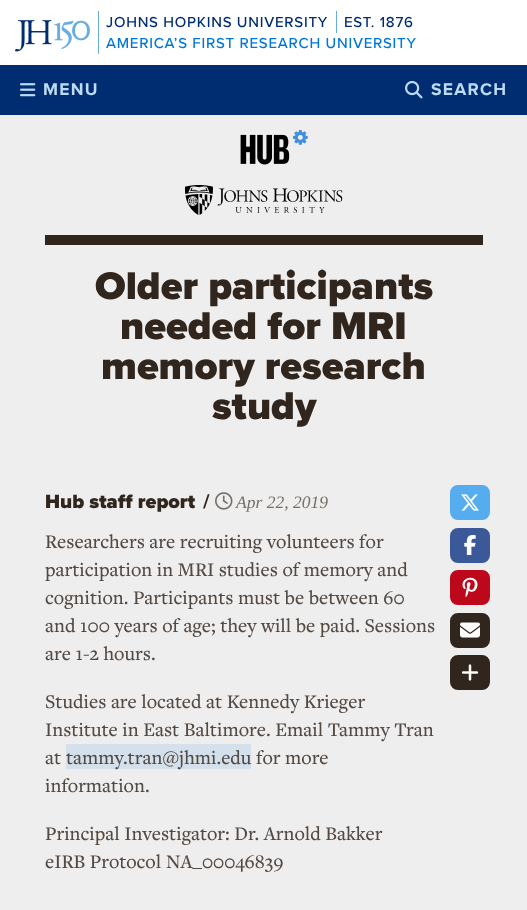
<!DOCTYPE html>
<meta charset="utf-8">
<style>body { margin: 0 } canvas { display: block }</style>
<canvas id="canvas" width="527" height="910"></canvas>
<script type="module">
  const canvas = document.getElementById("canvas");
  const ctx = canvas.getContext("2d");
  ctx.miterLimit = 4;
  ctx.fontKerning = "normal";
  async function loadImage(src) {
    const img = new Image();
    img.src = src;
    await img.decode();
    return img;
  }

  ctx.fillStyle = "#efeeee";
  ctx.fillRect(0, 0, 527, 910);
  ctx.fillStyle = "#ffffff";
  ctx.fillRect(0, 0, 527, 65);
  ctx.drawImage(await loadImage("img1.png"), 15, 20, 75, 32);
  ctx.fillStyle = "#68ace5";
  ctx.fillRect(98, 11, 1, 43);
  ctx.letterSpacing = "0.75px";
  ctx.font = "500 15px Proxima Nova";
  ctx.fillStyle = "#002d72";
  ctx.fillText("JOHNS HOPKINS UNIVERSITY", 106, 27);
  ctx.fillStyle = "#68ace5";
  ctx.fillRect(336, 11, 1, 22);
  ctx.fillStyle = "#002d72";
  ctx.fillText("EST. 1876", 344, 27);
  ctx.fillStyle = "#0077d8";
  ctx.fillText("AMERICA’S FIRST RESEARCH UNIVERSITY", 106, 48);
  ctx.fillStyle = "#002d72";
  ctx.fillRect(0, 65, 527, 50);
  ctx.drawImage(await loadImage("img2.png"), 20, 83, 16, 14);
  ctx.letterSpacing = "1.25px";
  ctx.font = "bold 17.5px Proxima Nova";
  ctx.fillStyle = "#bddbf4";
  ctx.fillText("MENU", 43, 95);
  ctx.drawImage(await loadImage("img3.png"), 405, 80, 18, 19);
  ctx.fillText("SEARCH", 431, 95);
  ctx.fillStyle = "#31261d";
  ctx.fillRect(45, 235, 438, 10);
  ctx.drawImage(await loadImage("img4.png"), 240, 130, 68, 35);
  ctx.drawImage(await loadImage("img5.png"), 185, 185, 158, 30);
  ctx.letterSpacing = "0px";
  ctx.font = "900 40px Proxima Nova";
  ctx.fillText("Older participants", 95, 299);
  ctx.fillText("needed for MRI", 120, 339);
  ctx.fillText("memory research", 101, 379);
  ctx.fillText("study", 212, 419);
  ctx.font = "900 20px Proxima Nova";
  ctx.fillText("Hub staff report", 45, 508);
  ctx.font = "bold 20px Proxima Nova";
  ctx.fillText("/", 203, 508);
  ctx.drawImage(await loadImage("img6.png"), 215, 492, 18, 18);
  ctx.font = "italic 17.5px Liberation Serif";
  ctx.fillStyle = "#766e68";
  ctx.fillText("Apr 22, 2019", 236, 508);
  ctx.font = "500 20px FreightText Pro";
  ctx.fillStyle = "#534a43";
  ctx.fillText("Researchers are recruiting volunteers for", 45, 548);
  ctx.fillText("participation in MRI studies of memory and", 45, 576);
  ctx.fillText("cognition. Participants must be between 60", 45, 604);
  ctx.fillText("and 100 years of age; they will be paid. Sessions", 45, 632);
  ctx.fillText("are 1-2 hours.", 45, 660);
  ctx.fillText("Studies are located at Kennedy Krieger", 45, 708);
  ctx.fillText("Institute in East Baltimore. Email Tammy Tran", 45, 736);
  ctx.fillText("at", 45, 764);
  ctx.fillStyle = "#d4e1ec";
  ctx.fillRect(66, 744, 185, 25);
  ctx.fillStyle = "#534a43";
  ctx.fillText("tammy.tran@jhmi.edu for more", 66, 764);
  ctx.fillText("information.", 45, 792);
  ctx.fillText("Principal Investigator: Dr. Arnold Bakker", 45, 840);
  ctx.fillText("eIRB Protocol NA_00046839", 45, 868);
  ctx.fillStyle = "#55acee";
  ctx.beginPath();
  ctx.roundRect(451.5, 486.5, 37, 32, 6.5);
  ctx.fill();
  ctx.strokeStyle = "#55acee";
  ctx.lineWidth = 3;
  ctx.stroke();
  ctx.drawImage(await loadImage("img7.png"), 461, 494, 18, 17);
  ctx.fillStyle = "#3b5999";
  ctx.beginPath();
  ctx.roundRect(451.5, 529.5, 37, 32, 6.5);
  ctx.fill();
  ctx.strokeStyle = "#3b5999";
  ctx.stroke();
  ctx.drawImage(await loadImage("img8.png"), 464, 535, 12, 20);
  ctx.fillStyle = "#bd081c";
  ctx.beginPath();
  ctx.roundRect(451.5, 571.5, 37, 32, 6.5);
  ctx.fill();
  ctx.strokeStyle = "#bd081c";
  ctx.stroke();
  ctx.drawImage(await loadImage("img9.png"), 462, 577, 16, 21);
  ctx.fillStyle = "#31261d";
  ctx.beginPath();
  ctx.roundRect(451.5, 614.5, 37, 32, 6.5);
  ctx.fill();
  ctx.strokeStyle = "#31261d";
  ctx.stroke();
  ctx.drawImage(await loadImage("img10.png"), 460, 622, 20, 16);
  ctx.beginPath();
  ctx.roundRect(451.5, 656.5, 37, 32, 6.5);
  ctx.fill();
  ctx.stroke();
  ctx.drawImage(await loadImage("img11.png"), 461, 664, 18, 17);
</script>
